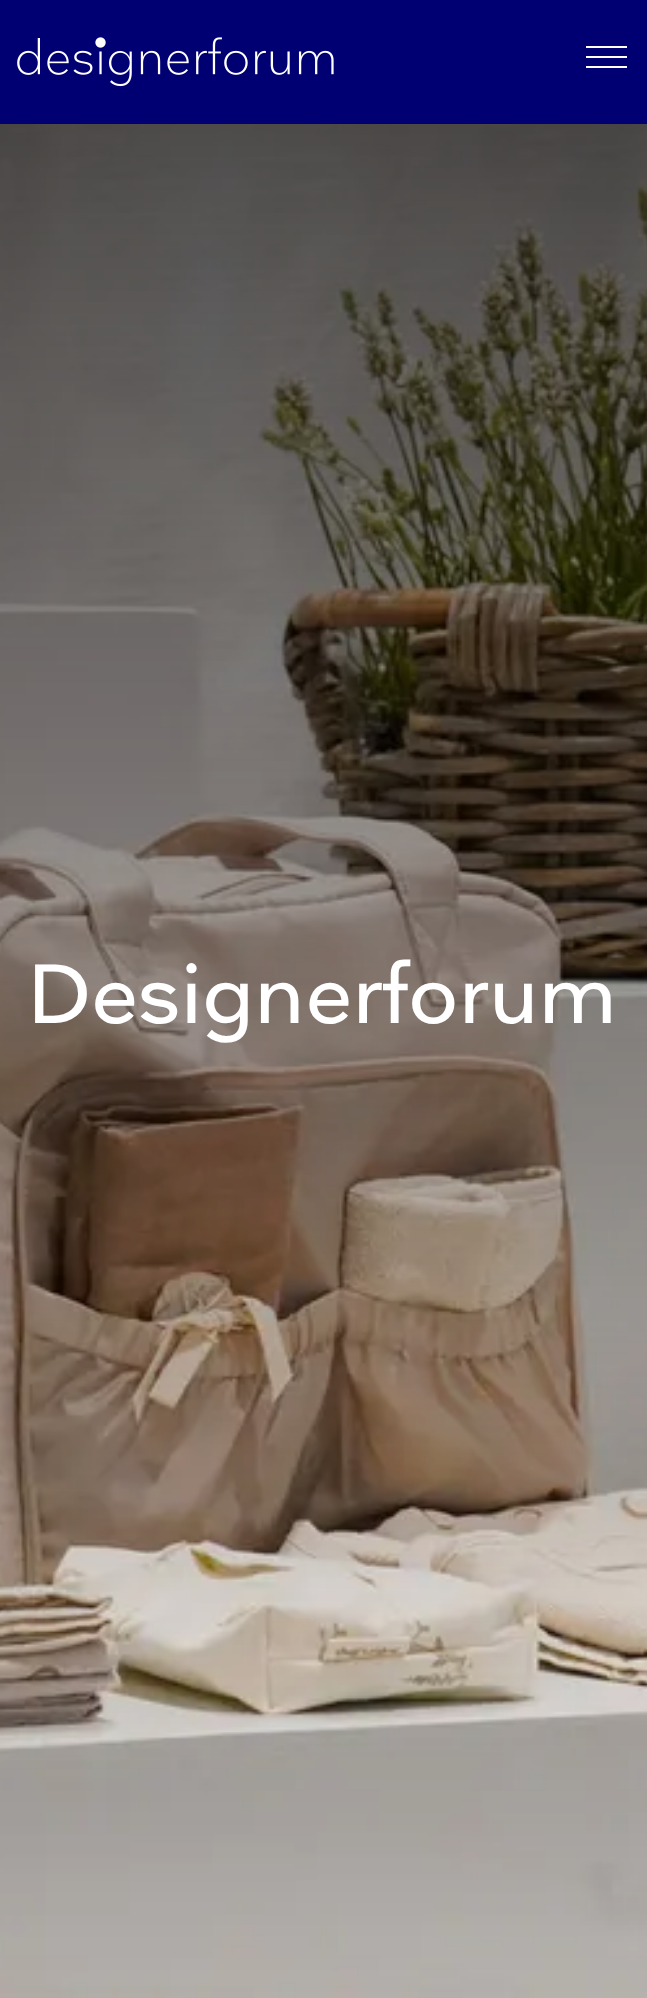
<!DOCTYPE html>
<meta charset="utf-8">
<style>body { margin: 0 } canvas { display: block }</style>
<canvas id="canvas" width="647" height="1998"></canvas>
<script type="module">
  const canvas = document.getElementById("canvas");
  const ctx = canvas.getContext("2d");
  ctx.miterLimit = 4;
  ctx.fontKerning = "normal";
  async function loadImage(src) {
    const img = new Image();
    img.src = src;
    await img.decode();
    return img;
  }

  ctx.fillStyle = "#ffffff";
  ctx.fillRect(0, 0, 647, 1998);
  ctx.fillStyle = "#000073";
  ctx.fillRect(0, 0, 647, 124);
  ctx.drawImage(await loadImage("img1.png"), 17, 37, 317, 50);
  ctx.fillStyle = "#ffffff";
  ctx.beginPath();
  ctx.moveTo(586, 46);
  ctx.lineTo(627, 46);
  ctx.lineTo(627, 48);
  ctx.lineTo(586, 48);
  ctx.closePath();
  ctx.moveTo(586, 56);
  ctx.lineTo(627, 56);
  ctx.lineTo(627, 58);
  ctx.lineTo(586, 58);
  ctx.closePath();
  ctx.moveTo(586, 66);
  ctx.lineTo(627, 66);
  ctx.lineTo(627, 68);
  ctx.lineTo(586, 68);
  ctx.closePath();
  ctx.fill("evenodd");
  ctx.drawImage(await loadImage("img2.png"), 0, 124, 647, 1874);
  ctx.font = "500 82.75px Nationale";
  ctx.fillText("Designerforum", 28, 1023);
</script>
